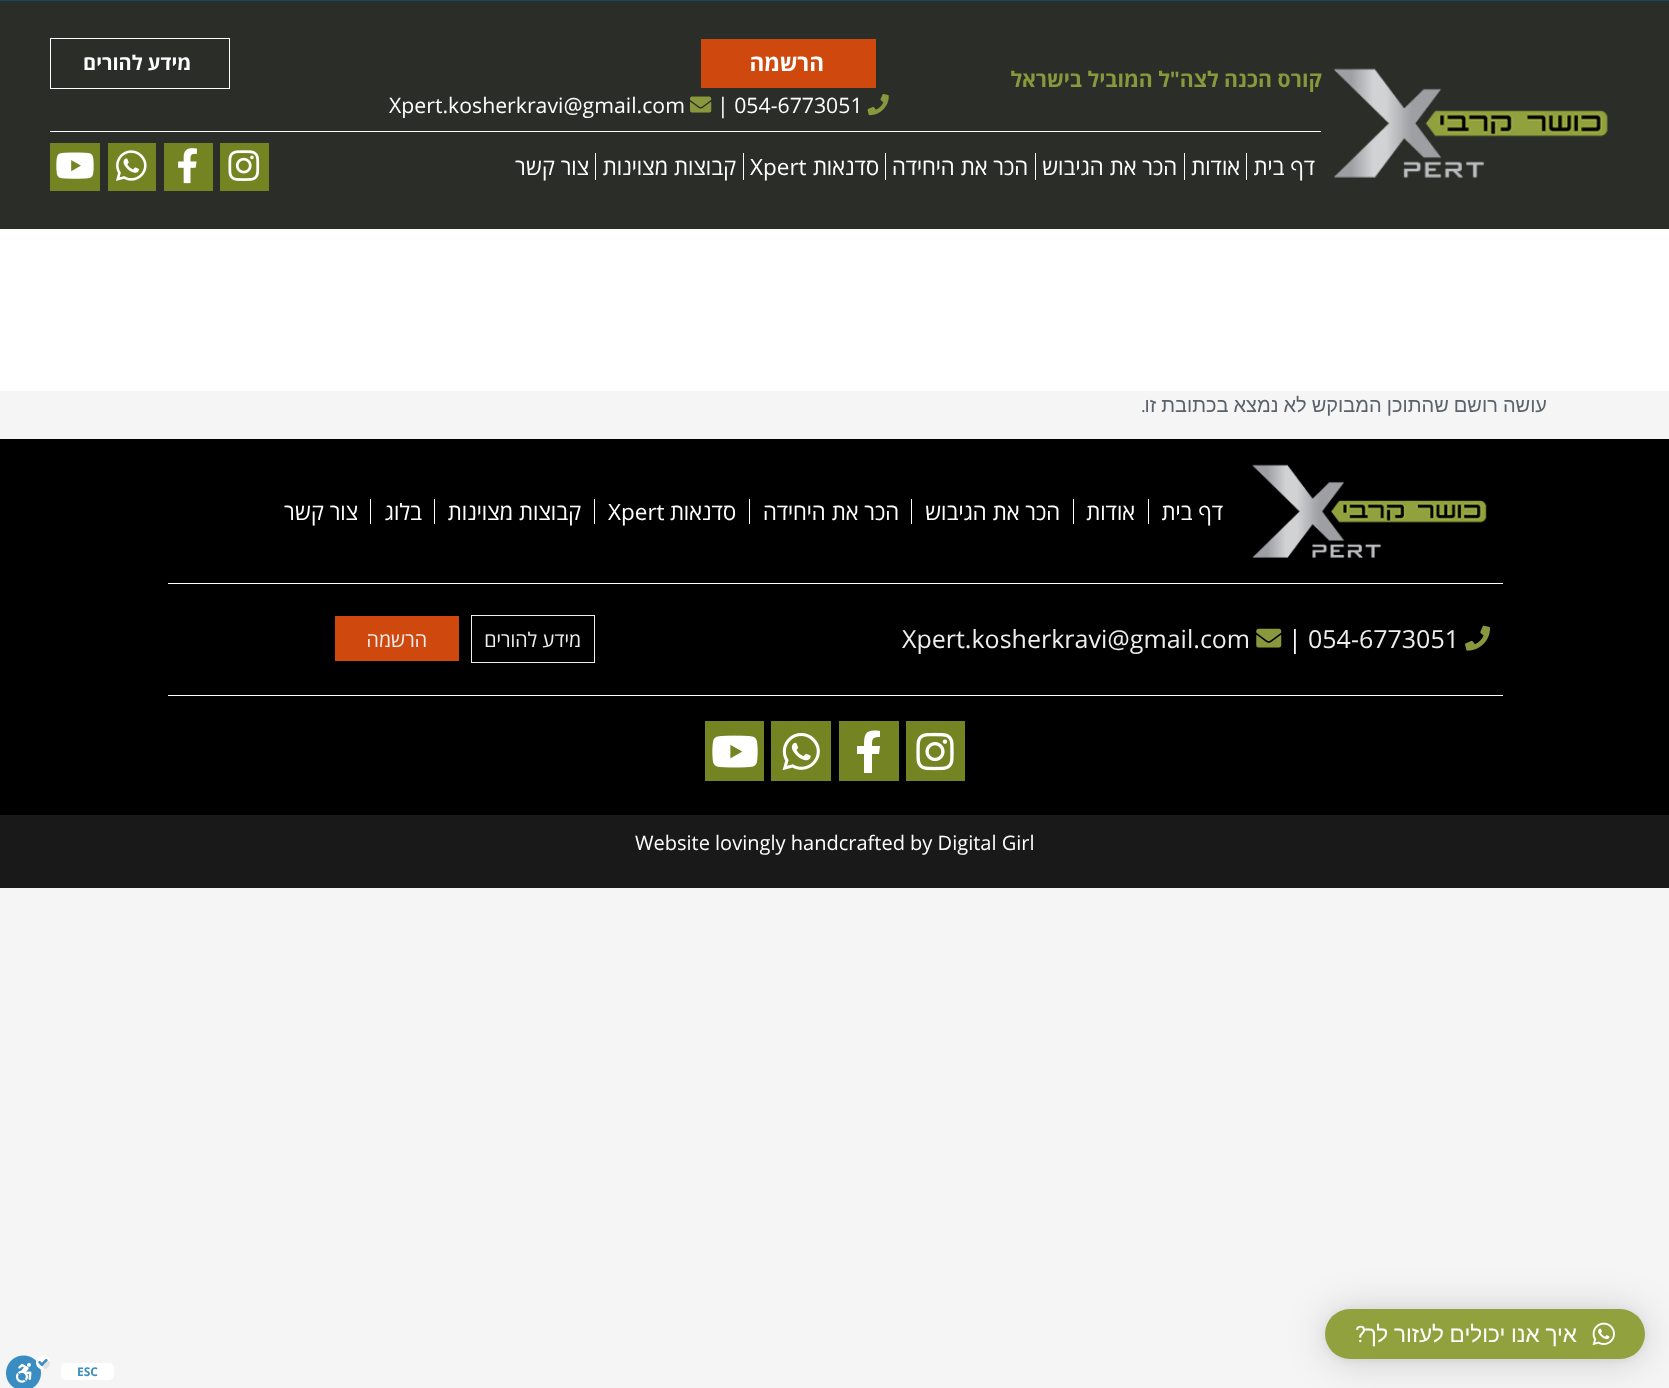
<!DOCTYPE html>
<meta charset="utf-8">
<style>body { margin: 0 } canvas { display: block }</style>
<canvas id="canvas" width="1669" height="1388"></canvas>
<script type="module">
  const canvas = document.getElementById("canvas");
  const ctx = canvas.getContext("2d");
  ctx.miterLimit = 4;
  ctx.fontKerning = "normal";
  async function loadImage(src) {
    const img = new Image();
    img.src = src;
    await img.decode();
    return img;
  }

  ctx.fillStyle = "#f5f5f5";
  ctx.fillRect(0, 0, 1669, 1388);
  ctx.fillStyle = "#ffffff";
  ctx.fillRect(0, 229, 1669, 162);
  ctx.fillStyle = "#2b2d28";
  ctx.fillRect(0, 1, 1669, 228);
  ctx.drawImage(await loadImage("img1.png"), 1333, 68, 275, 110);
  ctx.direction = "rtl";
  ctx.font = "bold 21.25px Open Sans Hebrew";
  ctx.fillStyle = "#89983c";
  ctx.fillText("קורס הכנה לצה\"ל המוביל בישראל", 1322, 87);
  ctx.fillStyle = "#cf490e";
  ctx.fillRect(701, 39, 175, 49);
  ctx.font = "bold 22.5px Open Sans Hebrew";
  ctx.fillStyle = "#ffffff";
  ctx.fillText("הרשמה", 824, 71);
  ctx.strokeStyle = "#ffffff";
  ctx.strokeRect(50.5, 38.5, 179, 50);
  ctx.font = "bold 20px Open Sans Hebrew";
  ctx.fillText("מידע להורים", 191, 70);
  ctx.drawImage(await loadImage("img2.png"), 867, 94, 22, 22);
  ctx.direction = "ltr";
  ctx.font = "21.25px Open Sans Hebrew";
  ctx.fillText("| 054-6773051", 717, 113);
  ctx.drawImage(await loadImage("img3.png"), 690, 96, 22, 17);
  ctx.fillText("Xpert.kosherkravi@gmail.com", 389, 113);
  ctx.fillRect(50, 131, 1271, 1);
  ctx.direction = "rtl";
  ctx.font = "22.5px Open Sans Hebrew";
  ctx.fillText("דף בית", 1315, 175);
  ctx.fillRect(1246, 153, 1, 27);
  ctx.fillText("אודות", 1240, 175);
  ctx.fillRect(1184, 153, 1, 27);
  ctx.fillText("הכר את הגיבוש", 1177, 175);
  ctx.fillRect(1035, 153, 1, 27);
  ctx.fillText("הכר את היחידה", 1028, 175);
  ctx.fillRect(885, 153, 1, 27);
  ctx.fillText("סדנאות", 879, 175);
  ctx.direction = "ltr";
  ctx.fillText("Xpert", 750, 175);
  ctx.fillRect(743, 153, 1, 27);
  ctx.direction = "rtl";
  ctx.fillText("קבוצות מצוינות", 736, 175);
  ctx.fillRect(595, 153, 1, 27);
  ctx.fillText("צור קשר", 589, 175);
  ctx.fillStyle = "#748422";
  ctx.fillRect(220, 143, 49, 48);
  ctx.drawImage(await loadImage("img4.png"), 228, 150, 32, 31);
  ctx.fillRect(164, 143, 49, 48);
  ctx.drawImage(await loadImage("img5.png"), 178, 148, 19, 36);
  ctx.fillRect(108, 143, 48, 48);
  ctx.drawImage(await loadImage("img6.png"), 116, 150, 31, 31);
  ctx.fillRect(50, 143, 50, 48);
  ctx.drawImage(await loadImage("img7.png"), 56, 152, 38, 27);
  ctx.wordSpacing = "-0.5px";
  ctx.font = "20px Liberation Sans";
  ctx.fillStyle = "#5b626b";
  ctx.fillText("עושה רושם שהתוכן המבוקש לא נמצא בכתובת זו", 1547, 412);
  ctx.wordSpacing = "0px";
  ctx.font = "20px Roboto";
  ctx.fillText(".", 1146, 412);
  ctx.fillStyle = "#000000";
  ctx.fillRect(0, 439, 1669, 376);
  ctx.drawImage(await loadImage("img8.png"), 1252, 464, 235, 94);
  ctx.font = "22.5px Open Sans Hebrew";
  ctx.fillStyle = "#ffffff";
  ctx.fillText("דף בית", 1223, 520);
  ctx.fillRect(1148, 499, 1, 25);
  ctx.fillText("אודות", 1135, 520);
  ctx.fillRect(1073, 499, 1, 25);
  ctx.fillText("הכר את הגיבוש", 1060, 520);
  ctx.fillRect(911, 499, 1, 25);
  ctx.fillText("הכר את היחידה", 899, 520);
  ctx.fillRect(749, 499, 1, 25);
  ctx.fillText("סדנאות", 736, 520);
  ctx.direction = "ltr";
  ctx.fillText("Xpert", 608, 520);
  ctx.fillRect(594, 499, 1, 25);
  ctx.direction = "rtl";
  ctx.fillText("קבוצות מצוינות", 581, 520);
  ctx.fillRect(434, 499, 1, 25);
  ctx.fillText("בלוג", 422, 520);
  ctx.fillRect(370, 499, 1, 25);
  ctx.fillText("צור קשר", 358, 520);
  ctx.fillRect(168, 583, 1335, 1);
  ctx.drawImage(await loadImage("img9.png"), 1465, 625, 25, 26);
  ctx.direction = "ltr";
  ctx.font = "25px Open Sans Hebrew";
  ctx.fillStyle = "#eeeeee";
  ctx.fillText("054-6773051", 1308, 648);
  ctx.fillStyle = "#ffffff";
  ctx.fillText("|", 1288, 648);
  ctx.drawImage(await loadImage("img10.png"), 1256, 628, 26, 20);
  ctx.fillStyle = "#eeeeee";
  ctx.fillText("Xpert.kosherkravi@gmail.com", 902, 648);
  ctx.strokeStyle = "#eeeeee";
  ctx.strokeRect(471.5, 615.5, 123, 47);
  ctx.direction = "rtl";
  ctx.font = "20px Open Sans Hebrew";
  ctx.fillText("מידע להורים", 581, 647);
  ctx.fillStyle = "#cf490e";
  ctx.fillRect(335, 616, 124, 45);
  ctx.fillStyle = "#eeeeee";
  ctx.fillText("הרשמה", 427, 647);
  ctx.fillStyle = "#ffffff";
  ctx.fillRect(168, 695, 1335, 1);
  ctx.fillStyle = "#748422";
  ctx.fillRect(906, 721, 59, 60);
  ctx.drawImage(await loadImage("img11.png"), 916, 732, 38, 39);
  ctx.fillRect(839, 721, 60, 60);
  ctx.fillStyle = "#ffffff";
  ctx.beginPath();
  ctx.moveTo(879, 754);
  ctx.lineTo(872, 754);
  ctx.lineTo(872, 773);
  ctx.lineTo(864, 773);
  ctx.lineTo(864, 754);
  ctx.lineTo(857, 754);
  ctx.lineTo(857, 746);
  ctx.lineTo(864, 746);
  ctx.bezierCurveTo(864, 733, 866, 729, 880, 731);
  ctx.lineTo(880, 737);
  ctx.bezierCurveTo(872, 737, 872, 739, 872, 746);
  ctx.lineTo(880, 746);
  ctx.closePath();
  ctx.fill();
  ctx.fillStyle = "#748422";
  ctx.fillRect(771, 721, 60, 60);
  ctx.drawImage(await loadImage("img12.png"), 782, 733, 38, 38);
  ctx.fillRect(705, 721, 59, 60);
  ctx.drawImage(await loadImage("img13.png"), 712, 735, 46, 33);
  ctx.fillStyle = "#191919";
  ctx.fillRect(0, 815, 1669, 73);
  ctx.direction = "ltr";
  ctx.fillStyle = "#ffffff";
  ctx.fillText("Website lovingly handcrafted by Digital Girl", 635, 850);
  ctx.fillStyle = "rgba(0, 0, 0, 0.16)";
  ctx.filter = "blur(20px)";
  ctx.beginPath();
  ctx.roundRect(1325, 1311, 320, 50, 25);
  ctx.fill();
  ctx.filter = "none";
  ctx.fillStyle = "rgba(0, 0, 0, 0.06)";
  ctx.filter = "blur(4px)";
  ctx.beginPath();
  ctx.roundRect(1325, 1310, 320, 50, 25);
  ctx.fill();
  ctx.filter = "none";
  ctx.fillStyle = "#91a13e";
  ctx.beginPath();
  ctx.roundRect(1325, 1309, 320, 50, 25);
  ctx.fill();
  ctx.drawImage(await loadImage("img14.png"), 1592, 1322, 23, 24);
  ctx.wordSpacing = "-0.5px";
  ctx.direction = "rtl";
  ctx.font = "22.5px Liberation Sans";
  ctx.fillStyle = "#ffffff";
  ctx.fillText("איך אנו יכולים לעזור לך", 1577, 1342);
  ctx.wordSpacing = "0px";
  ctx.font = "22.5px Roboto";
  ctx.fillText("?", 1366, 1342);
  ctx.fillStyle = "#15495f";
  ctx.fillRect(0, 0, 1669, 1);
  ctx.fillStyle = "#ffffff";
  ctx.beginPath();
  ctx.roundRect(61, 1363, 53, 17, 5);
  ctx.fill();
  ctx.direction = "ltr";
  ctx.font = "bold 12px Open Sans Hebrew";
  ctx.fillStyle = "#3a8dc2";
  ctx.fillText("ESC", 77, 1376);
  ctx.drawImage(await loadImage("img15.png"), 6, 1355, 44, 33);
</script>
